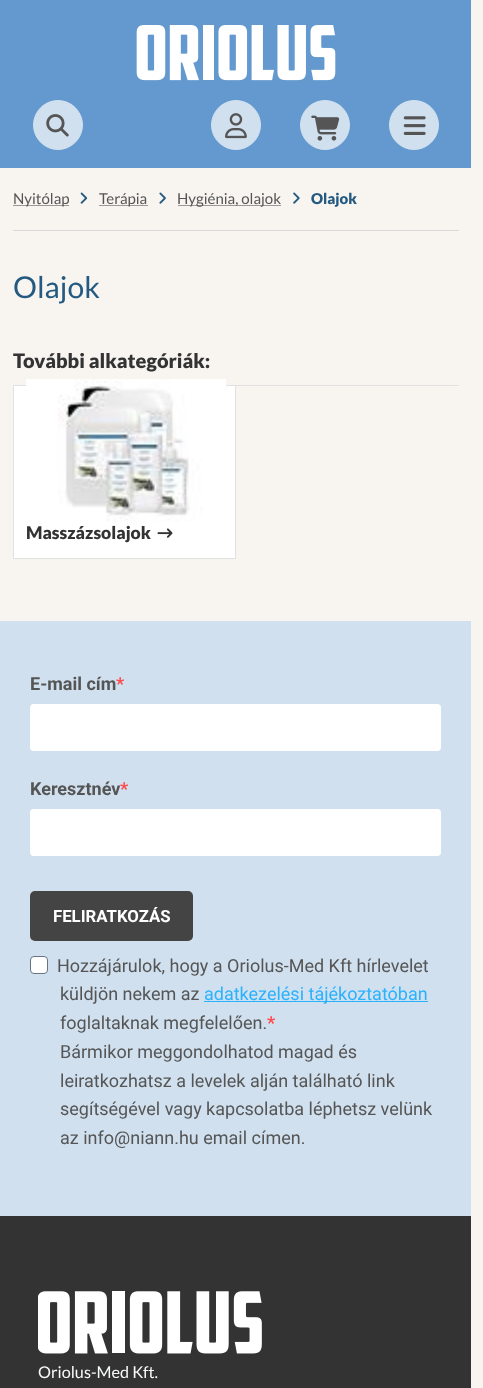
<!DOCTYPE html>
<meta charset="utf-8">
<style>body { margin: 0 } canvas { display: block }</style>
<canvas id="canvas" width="483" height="1388"></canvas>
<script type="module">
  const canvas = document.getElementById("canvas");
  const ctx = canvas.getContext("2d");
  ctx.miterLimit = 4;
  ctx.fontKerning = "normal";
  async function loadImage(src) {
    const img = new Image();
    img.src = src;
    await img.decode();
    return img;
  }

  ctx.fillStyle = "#f8f5f1";
  ctx.fillRect(0, 0, 483, 1388);
  ctx.fillStyle = "#6399ce";
  ctx.fillRect(0, 0, 471, 168);
  ctx.drawImage(await loadImage("img1.png"), 136, 25, 200, 56);
  ctx.fillStyle = "#d0e0ef";
  ctx.beginPath();
  ctx.arc(58, 125, 24.5, 0, Math.PI * 2);
  ctx.fill();
  ctx.strokeStyle = "#d0e0ef";
  ctx.stroke();
  ctx.drawImage(await loadImage("img2.png"), 46, 114, 23, 23);
  ctx.beginPath();
  ctx.arc(236, 125, 24.5, 0, Math.PI * 2);
  ctx.fill();
  ctx.stroke();
  ctx.drawImage(await loadImage("img3.png"), 225, 113, 22, 26);
  ctx.beginPath();
  ctx.arc(325, 125, 24.5, 0, Math.PI * 2);
  ctx.fill();
  ctx.stroke();
  ctx.drawImage(await loadImage("img4.png"), 311, 115, 29, 26);
  ctx.beginPath();
  ctx.arc(414, 125, 24.5, 0, Math.PI * 2);
  ctx.fill();
  ctx.stroke();
  ctx.drawImage(await loadImage("img5.png"), 403, 116, 23, 19);
  ctx.fillStyle = "#d9d9d9";
  ctx.fillRect(13, 230, 446, 1);
  ctx.fillStyle = "#999999";
  ctx.fillRect(13, 205, 56, 1);
  ctx.font = "15px Lato";
  ctx.fillStyle = "#555555";
  ctx.fillText("Nyitólap", 13, 204);
  ctx.drawImage(await loadImage("img6.png"), 80, 192, 8, 12);
  ctx.fillStyle = "#999999";
  ctx.fillRect(99, 205, 49, 1);
  ctx.fillStyle = "#555555";
  ctx.fillText("Terápia", 99, 204);
  ctx.drawImage(await loadImage("img7.png"), 159, 192, 7, 12);
  ctx.fillStyle = "#999999";
  ctx.fillRect(178, 205, 103, 1);
  ctx.fillStyle = "#555555";
  ctx.fillText("Hygiénia, olajok", 177, 204);
  ctx.drawImage(await loadImage("img8.png"), 293, 192, 7, 12);
  ctx.font = "900 15px Lato";
  ctx.fillStyle = "#245a80";
  ctx.fillText("Olajok", 311, 204);
  ctx.font = "30px Lato";
  ctx.fillText("Olajok", 13, 298);
  ctx.save();
  ctx.beginPath();
  ctx.rect(13, 348, 446, 211);
  ctx.clip();
  ctx.font = "900 20px Lato";
  ctx.fillStyle = "#333333";
  ctx.fillText("További alkategóriák:", 13, 368);
  ctx.restore();
  ctx.fillStyle = "#e1e1e1";
  ctx.fillRect(13, 385, 446, 1);
  ctx.fillRect(13, 385, 1, 174);
  ctx.fillStyle = "#ffffff";
  ctx.fillRect(14, 386, 221, 172);
  ctx.fillStyle = "#e1e1e1";
  ctx.fillRect(235, 386, 1, 173);
  ctx.fillRect(14, 558, 222, 1);
  ctx.drawImage(await loadImage("img9.png"), 26, 379, 201, 143);
  ctx.font = "900 17.5px Lato";
  ctx.fillStyle = "#333333";
  ctx.fillText("Masszázsolajok", 26, 539);
  ctx.drawImage(await loadImage("img10.png"), 157, 528, 16, 10);
  ctx.fillStyle = "#d0e0ef";
  ctx.fillRect(0, 621, 471, 595);
  ctx.font = "bold 18px Roboto";
  ctx.fillStyle = "#555555";
  ctx.fillText("E-mail cím", 30, 690);
  ctx.fillStyle = "#ff4949";
  ctx.fillText("*", 116, 690);
  ctx.fillStyle = "#ffffff";
  ctx.beginPath();
  ctx.roundRect(30, 704, 411, 47, 4);
  ctx.fill();
  ctx.beginPath();
  ctx.roundRect(30, 704, 411, 47, 5);
  ctx.fill();
  ctx.fillStyle = "#555555";
  ctx.fillText("Keresztnév", 30, 795);
  ctx.fillStyle = "#ff4949";
  ctx.fillText("*", 120, 795);
  ctx.fillStyle = "#ffffff";
  ctx.beginPath();
  ctx.roundRect(30, 809, 411, 47, 4);
  ctx.fill();
  ctx.beginPath();
  ctx.roundRect(30, 809, 411, 47, 5);
  ctx.fill();
  ctx.fillStyle = "#444444";
  ctx.beginPath();
  ctx.roundRect(30, 891, 163, 50, 5);
  ctx.fill();
  ctx.font = "bold 16.75px Roboto";
  ctx.fillStyle = "#ffffff";
  ctx.fillText("FELIRATKOZÁS", 53, 922);
  ctx.beginPath();
  ctx.roundRect(30.5, 956.5, 17, 17, 3.5);
  ctx.fill();
  ctx.strokeStyle = "#687484";
  ctx.stroke();
  ctx.font = "18px Roboto";
  ctx.fillStyle = "#555555";
  ctx.fillText("Hozzájárulok, hogy a Oriolus-Med Kft hírlevelet", 57, 972);
  ctx.fillText("küldjön nekem az", 60, 1000);
  ctx.fillStyle = "#2bb2fc";
  ctx.fillRect(204, 1001, 224, 1);
  ctx.fillText("adatkezelési tájékoztatóban", 204, 1000);
  ctx.fillStyle = "#555555";
  ctx.fillText("foglaltaknak megfelelően.", 60, 1029);
  ctx.font = "bold 18px Roboto";
  ctx.fillStyle = "#ff4949";
  ctx.fillText("*", 267, 1029);
  ctx.font = "18px Roboto";
  ctx.fillStyle = "#555555";
  ctx.fillText("Bármikor meggondolhatod magad és", 60, 1058);
  ctx.fillText("leiratkozhatsz a levelek alján található link", 60, 1087);
  ctx.fillText("segítségével vagy kapcsolatba léphetsz velünk", 60, 1115);
  ctx.fillText("az info@niann.hu email címen.", 60, 1144);
  ctx.fillStyle = "#333333";
  ctx.fillRect(0, 1216, 471, 172);
  ctx.drawImage(await loadImage("img11.png"), 38, 1291, 224, 63);
  ctx.font = "16.25px Lato";
  ctx.fillStyle = "#f8f9fa";
  ctx.fillText("Oriolus-Med Kft.", 38, 1378);
</script>
